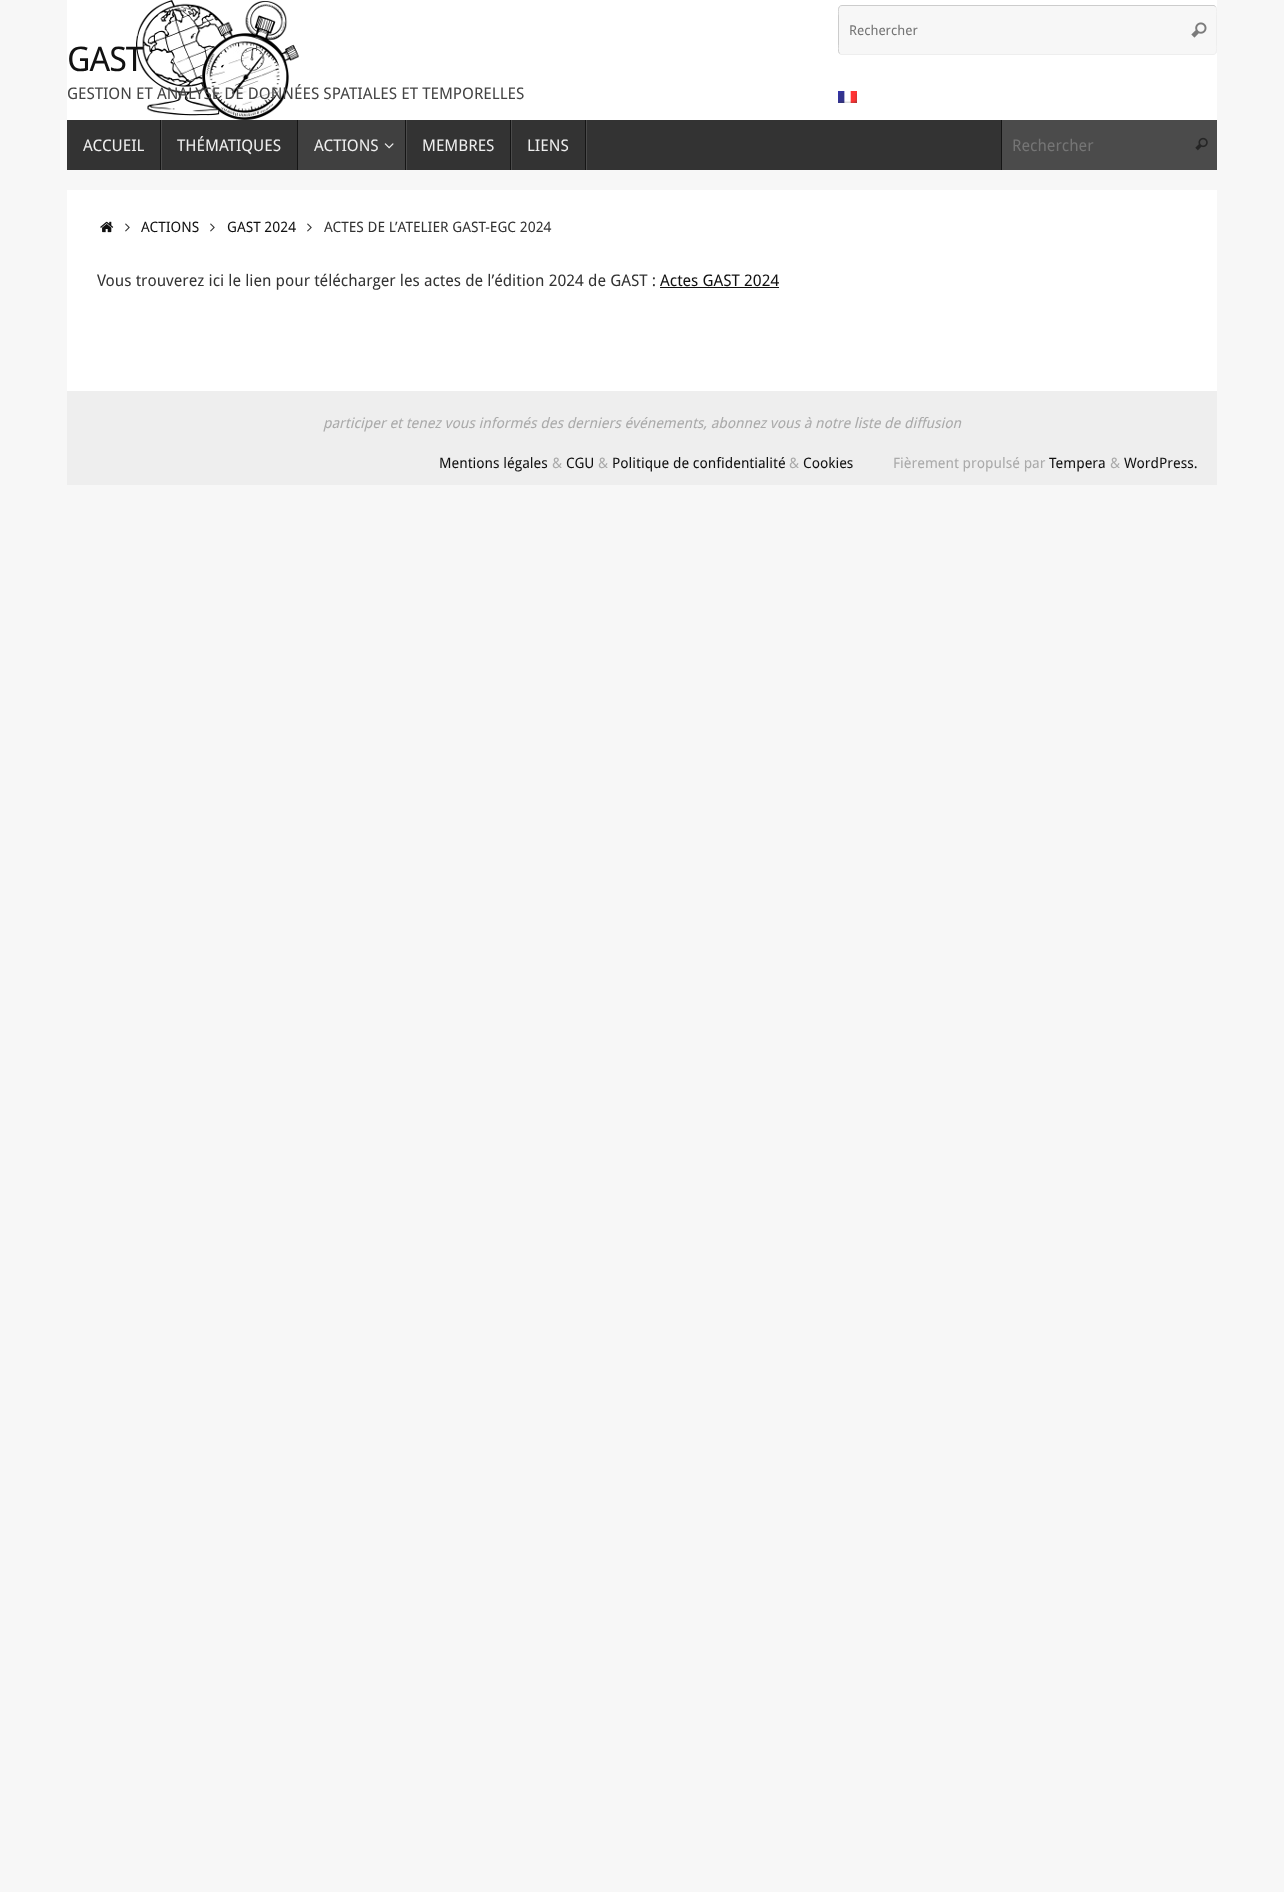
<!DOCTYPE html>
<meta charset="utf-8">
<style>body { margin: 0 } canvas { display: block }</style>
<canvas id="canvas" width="1284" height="1892"></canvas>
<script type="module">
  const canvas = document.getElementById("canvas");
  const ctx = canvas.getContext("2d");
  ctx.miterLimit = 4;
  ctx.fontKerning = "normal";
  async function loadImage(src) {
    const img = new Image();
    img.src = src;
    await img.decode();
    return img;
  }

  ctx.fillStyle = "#f7f7f7";
  ctx.fillRect(0, 0, 1284, 1892);
  ctx.drawImage(await loadImage("img1.png"), 67, 0, 1150, 120);
  ctx.beginPath();
  ctx.roundRect(838, 5, 379, 50, 4);
  ctx.fill();
  ctx.save();
  ctx.beginPath();
  ctx.rect(838, 5, 379, 50);
  ctx.clip();
  ctx.beginPath();
  ctx.moveTo(1215.5, 6.5);
  ctx.bezierCurveTo(1217.5, 8.5, 1216.5, 14.5, 1216.5, 16);
  ctx.lineTo(1216.5, 44);
  ctx.bezierCurveTo(1216.5, 46.5, 1218, 54.5, 1213, 54.5);
  ctx.lineTo(841, 54.5);
  ctx.lineTo(839.5, 53.5);
  ctx.strokeStyle = "#eeeeee";
  ctx.stroke();
  ctx.beginPath();
  ctx.moveTo(839.5, 53.5);
  ctx.bezierCurveTo(837.5, 51.5, 838.5, 45.5, 838.5, 44);
  ctx.lineTo(838.5, 16);
  ctx.bezierCurveTo(838.5, 13.5, 837, 5.5, 842, 5.5);
  ctx.lineTo(1214, 5.5);
  ctx.lineTo(1215.5, 6.5);
  ctx.strokeStyle = "#cccccc";
  ctx.stroke();
  ctx.restore();
  ctx.font = "13.5px Droid Sans";
  ctx.fillStyle = "#757575";
  ctx.fillText("Rechercher", 849, 35);
  ctx.drawImage(await loadImage("img2.png"), 1191, 22, 16, 16);
  ctx.drawImage(await loadImage("img3.png"), 838, 91, 19, 12);
  ctx.letterSpacing = "-1px";
  ctx.font = "34px Droid Sans";
  ctx.fillStyle = "#111111";
  ctx.fillText("GAST", 67, 71);
  ctx.letterSpacing = "0px";
  ctx.font = "16px Droid Sans";
  ctx.fillStyle = "#444444";
  ctx.fillText("GESTION ET ANALYSE DE DONNÉES SPATIALES ET TEMPORELLES", 67, 99);
  ctx.fillStyle = "#333333";
  ctx.fillRect(67, 120, 934, 50);
  ctx.fillStyle = "#4b4b4b";
  ctx.fillRect(161, 120, 1, 50);
  ctx.fillStyle = "#151515";
  ctx.fillRect(160, 120, 1, 50);
  ctx.fillStyle = "#eeeeee";
  ctx.fillText("ACCUEIL", 83, 151);
  ctx.fillStyle = "#151515";
  ctx.fillRect(297, 120, 1, 50);
  ctx.fillStyle = "#eeeeee";
  ctx.fillText("THÉMATIQUES", 177, 151);
  ctx.fillStyle = "#404040";
  ctx.fillRect(298, 120, 107, 50);
  ctx.fillStyle = "#4b4b4b";
  ctx.fillRect(406, 120, 1, 50);
  ctx.fillStyle = "#151515";
  ctx.fillRect(405, 120, 1, 50);
  ctx.fillStyle = "#eeeeee";
  ctx.fillText("ACTIONS", 314, 151);
  ctx.drawImage(await loadImage("img4.png"), 384, 143, 10, 6);
  ctx.fillStyle = "#4b4b4b";
  ctx.fillRect(511, 120, 1, 50);
  ctx.fillStyle = "#151515";
  ctx.fillRect(510, 120, 1, 50);
  ctx.fillStyle = "#eeeeee";
  ctx.fillText("MEMBRES", 422, 151);
  ctx.fillStyle = "#4b4b4b";
  ctx.fillRect(586, 120, 1, 50);
  ctx.fillStyle = "#151515";
  ctx.fillRect(585, 120, 1, 50);
  ctx.fillStyle = "#eeeeee";
  ctx.fillText("LIENS", 527, 151);
  ctx.fillStyle = "#4b4b4b";
  ctx.fillRect(1002, 120, 215, 50);
  ctx.fillStyle = "#151515";
  ctx.fillRect(1001, 120, 1, 50);
  ctx.fillStyle = "#757575";
  ctx.fillText("Rechercher", 1012, 151);
  ctx.drawImage(await loadImage("img5.png"), 1195, 137, 13, 14);
  ctx.fillStyle = "#ffffff";
  ctx.fillRect(67, 190, 1150, 201);
  ctx.drawImage(await loadImage("img6.png"), 100, 221, 14, 12);
  ctx.drawImage(await loadImage("img7.png"), 125, 223, 5, 9);
  ctx.font = "14.4px Droid Sans";
  ctx.fillStyle = "#111111";
  ctx.fillText("ACTIONS", 141, 232);
  ctx.drawImage(await loadImage("img7.png"), 210, 223, 5, 9);
  ctx.fillText("GAST 2024", 227, 232);
  ctx.drawImage(await loadImage("img7.png"), 307, 223, 5, 9);
  ctx.fillStyle = "#333333";
  ctx.fillText("ACTES DE L’ATELIER GAST-EGC 2024", 324, 232);
  ctx.font = "16px Droid Sans";
  ctx.fillText("Vous trouverez ici le lien pour télécharger les actes de l’édition 2024 de GAST :", 97, 286);
  ctx.fillStyle = "#111111";
  ctx.fillText("Actes GAST 2024", 660, 286);
  ctx.fillRect(660, 287, 119, 1);
  ctx.fillStyle = "#eeeeee";
  ctx.fillRect(67, 391, 1150, 94);
  ctx.font = "italic 14.4px Droid Sans";
  ctx.fillStyle = "#aaaaaa";
  ctx.fillText("participer et tenez vous informés des derniers événements, abonnez vous à notre liste de diffusion", 323, 428);
  ctx.font = "14.4px Droid Sans";
  ctx.fillStyle = "#111111";
  ctx.fillText("Mentions légales", 439, 468);
  ctx.fillStyle = "#aaaaaa";
  ctx.fillText("&", 552, 468);
  ctx.fillStyle = "#111111";
  ctx.fillText("CGU", 566, 468);
  ctx.fillStyle = "#aaaaaa";
  ctx.fillText("&", 598, 468);
  ctx.fillStyle = "#111111";
  ctx.fillText("Politique de confidentialité", 612, 468);
  ctx.fillStyle = "#aaaaaa";
  ctx.fillText("&", 789, 468);
  ctx.fillStyle = "#111111";
  ctx.fillText("Cookies", 803, 468);
  ctx.fillStyle = "#aaaaaa";
  ctx.fillText("Fièrement propulsé par", 893, 468);
  ctx.fillStyle = "#111111";
  ctx.fillText("Tempera", 1049, 468);
  ctx.fillStyle = "#aaaaaa";
  ctx.fillText("&", 1110, 468);
  ctx.fillStyle = "#111111";
  ctx.fillText("WordPress.", 1124, 468);
</script>
